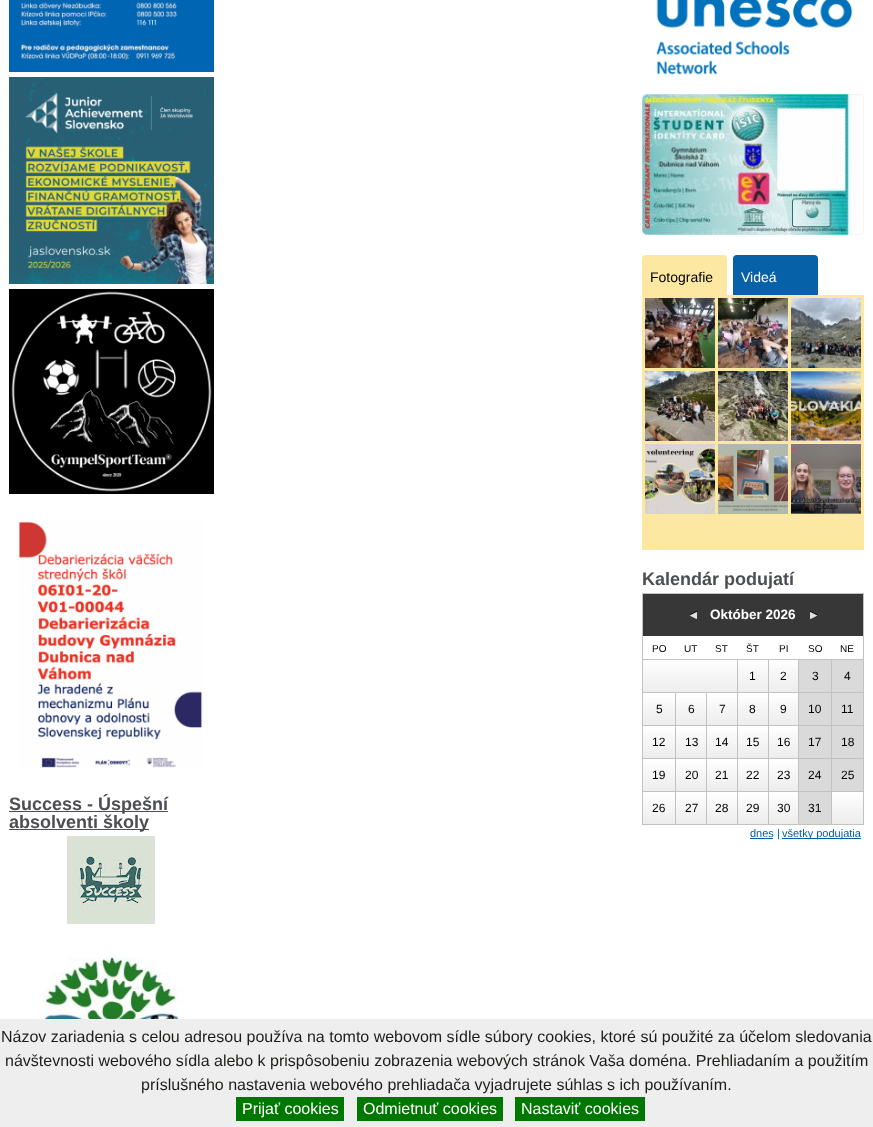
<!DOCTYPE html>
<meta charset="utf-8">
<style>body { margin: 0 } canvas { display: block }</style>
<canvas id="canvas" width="873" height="1127"></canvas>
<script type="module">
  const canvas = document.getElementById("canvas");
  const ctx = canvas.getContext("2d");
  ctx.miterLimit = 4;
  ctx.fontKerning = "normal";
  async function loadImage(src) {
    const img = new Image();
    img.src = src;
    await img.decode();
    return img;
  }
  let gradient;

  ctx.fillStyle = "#ffffff";
  ctx.fillRect(0, 0, 873, 1127);
  ctx.drawImage(await loadImage("img1.png"), 9, 0, 205, 72);
  ctx.drawImage(await loadImage("img2.png"), 9, 77, 205, 207);
  ctx.drawImage(await loadImage("img3.png"), 9, 289, 205, 205);
  ctx.drawImage(await loadImage("img4.png"), 19, 521, 184, 247);
  ctx.fillStyle = "#4d4e53";
  ctx.fillRect(9, 811, 159, 1);
  ctx.font = "bold 18px Liberation Sans";
  ctx.fillText("Success - Úspešní", 9, 810);
  ctx.fillRect(9, 829, 140, 1);
  ctx.fillText("absolventi školy", 9, 828);
  ctx.drawImage(await loadImage("img5.png"), 67, 836, 88, 88);
  ctx.drawImage(await loadImage("img6.png"), 38, 957, 146, 62);
  ctx.drawImage(await loadImage("img7.png"), 656, 0, 197, 75);
  ctx.drawImage(await loadImage("img8.png"), 642, 94, 222, 141);
  ctx.fillStyle = "#fde8a1";
  ctx.beginPath();
  ctx.roundRect(642, 255, 85, 40, [4, 4, 0, 0]);
  ctx.fill();
  ctx.font = "14px Liberation Sans";
  ctx.fillStyle = "#000000";
  ctx.fillText("Fotografie", 650, 282);
  ctx.fillStyle = "#0761a8";
  ctx.beginPath();
  ctx.roundRect(733, 255, 85, 40, [4, 4, 0, 0]);
  ctx.fill();
  ctx.fillStyle = "#ffffff";
  ctx.fillText("Videá", 741, 282);
  ctx.fillStyle = "#fde8a1";
  ctx.fillRect(642, 295, 222, 255);
  ctx.drawImage(await loadImage("img9.png"), 645, 298, 70, 70);
  ctx.drawImage(await loadImage("img10.png"), 718, 298, 70, 70);
  ctx.drawImage(await loadImage("img11.png"), 791, 298, 70, 70);
  ctx.drawImage(await loadImage("img12.png"), 645, 371, 70, 70);
  ctx.drawImage(await loadImage("img13.png"), 718, 371, 70, 70);
  ctx.drawImage(await loadImage("img14.png"), 791, 371, 70, 70);
  ctx.drawImage(await loadImage("img15.png"), 645, 444, 70, 70);
  ctx.drawImage(await loadImage("img16.png"), 718, 444, 70, 70);
  ctx.drawImage(await loadImage("img17.png"), 791, 444, 70, 70);
  ctx.font = "bold 18px Liberation Sans";
  ctx.fillStyle = "#4d4e53";
  ctx.fillText("Kalendár podujatí", 642, 585);
  ctx.fillStyle = "#c2c2c2";
  ctx.fillRect(642, 593, 222, 1);
  ctx.fillRect(863, 593, 1, 232);
  ctx.fillRect(642, 824, 222, 1);
  ctx.fillRect(642, 593, 1, 232);
  ctx.fillStyle = "#373737";
  ctx.fillRect(643, 594, 220, 42);
  ctx.drawImage(await loadImage("img18.png"), 690, 611, 7, 8);
  ctx.font = "bold 13.5px Liberation Sans";
  ctx.fillStyle = "#ffffff";
  ctx.fillText("Október 2026", 710, 619);
  ctx.drawImage(await loadImage("img19.png"), 810, 611, 7, 8);
  ctx.fillStyle = "#c2c2c2";
  ctx.fillRect(642, 659, 222, 1);
  ctx.font = "10px Liberation Sans";
  ctx.fillStyle = "#000000";
  ctx.fillText("PO", 652, 652);
  ctx.fillText("UT", 684, 652);
  ctx.fillText("ST", 715, 652);
  ctx.fillText("ŠT", 746, 652);
  ctx.fillText("PI", 779, 652);
  ctx.fillText("SO", 808, 652);
  ctx.fillText("NE", 840, 652);
  gradient = ctx.createLinearGradient(689, 660, 689, 692);
  gradient.addColorStop(0, "#ffffff");
  gradient.addColorStop(0.47, "#f6f6f6");
  gradient.addColorStop(1, "#ededed");
  ctx.fillStyle = gradient;
  ctx.fillRect(643, 664, 94, 28);
  ctx.fillStyle = "#c2c2c2";
  ctx.fillRect(831, 791, 1, 34);
  ctx.fillRect(831, 791, 33, 1);
  ctx.fillRect(831, 758, 1, 34);
  ctx.fillRect(831, 758, 33, 1);
  ctx.fillRect(831, 725, 1, 34);
  ctx.fillRect(831, 725, 33, 1);
  ctx.fillRect(831, 692, 1, 34);
  ctx.fillRect(831, 692, 33, 1);
  ctx.fillRect(831, 659, 1, 34);
  ctx.fillRect(798, 791, 1, 34);
  ctx.fillRect(798, 791, 34, 1);
  ctx.fillRect(798, 758, 1, 34);
  ctx.fillRect(798, 758, 34, 1);
  ctx.fillRect(798, 725, 1, 34);
  ctx.fillRect(798, 725, 34, 1);
  ctx.fillRect(798, 692, 1, 34);
  ctx.fillRect(798, 692, 34, 1);
  ctx.fillRect(798, 659, 1, 34);
  ctx.fillRect(768, 791, 1, 34);
  ctx.fillRect(768, 791, 31, 1);
  ctx.fillRect(768, 758, 1, 34);
  ctx.fillRect(768, 758, 31, 1);
  ctx.fillRect(768, 725, 1, 34);
  ctx.fillRect(768, 725, 31, 1);
  ctx.fillRect(768, 692, 1, 34);
  ctx.fillRect(768, 692, 31, 1);
  ctx.fillRect(768, 659, 1, 34);
  ctx.fillRect(737, 791, 1, 34);
  ctx.fillRect(737, 791, 32, 1);
  ctx.fillRect(737, 758, 1, 34);
  ctx.fillRect(737, 758, 32, 1);
  ctx.fillRect(737, 725, 1, 34);
  ctx.fillRect(737, 725, 32, 1);
  ctx.fillRect(737, 692, 1, 34);
  ctx.fillRect(737, 692, 32, 1);
  ctx.fillRect(737, 659, 1, 34);
  ctx.fillRect(706, 791, 1, 34);
  ctx.fillRect(706, 791, 32, 1);
  ctx.fillRect(706, 758, 1, 34);
  ctx.fillRect(706, 758, 32, 1);
  ctx.fillRect(706, 725, 1, 34);
  ctx.fillRect(706, 725, 32, 1);
  ctx.fillRect(706, 692, 1, 34);
  ctx.fillRect(675, 791, 1, 34);
  ctx.fillRect(675, 791, 32, 1);
  ctx.fillRect(675, 758, 1, 34);
  ctx.fillRect(675, 758, 32, 1);
  ctx.fillRect(675, 725, 1, 34);
  ctx.fillRect(675, 725, 32, 1);
  ctx.fillRect(675, 692, 1, 34);
  ctx.fillRect(642, 692, 96, 1);
  gradient = ctx.createLinearGradient(752, 660, 752, 692);
  gradient.addColorStop(0, "#ffffff");
  gradient.addColorStop(0.47, "#f6f6f6");
  gradient.addColorStop(1, "#ededed");
  ctx.fillStyle = gradient;
  ctx.fillRect(738, 664, 30, 28);
  ctx.font = "12px Liberation Sans";
  ctx.fillStyle = "#000000";
  ctx.fillText("1", 749, 680);
  gradient = ctx.createLinearGradient(783, 660, 783, 692);
  gradient.addColorStop(0, "#ffffff");
  gradient.addColorStop(0.47, "#f6f6f6");
  gradient.addColorStop(1, "#ededed");
  ctx.fillStyle = gradient;
  ctx.fillRect(769, 664, 29, 28);
  ctx.fillStyle = "#000000";
  ctx.fillText("2", 780, 680);
  ctx.fillStyle = "#dadada";
  ctx.fillRect(799, 660, 32, 32);
  ctx.fillStyle = "#000000";
  ctx.fillText("3", 812, 680);
  ctx.fillStyle = "#dadada";
  ctx.fillRect(832, 660, 31, 32);
  ctx.fillStyle = "#000000";
  ctx.fillText("4", 844, 680);
  gradient = ctx.createLinearGradient(659, 693, 659, 725);
  gradient.addColorStop(0, "#ffffff");
  gradient.addColorStop(0.47, "#f6f6f6");
  gradient.addColorStop(1, "#ededed");
  ctx.fillStyle = gradient;
  ctx.fillRect(643, 697, 32, 28);
  ctx.fillStyle = "#c2c2c2";
  ctx.fillRect(642, 725, 34, 1);
  ctx.fillStyle = "#000000";
  ctx.fillText("5", 656, 713);
  gradient = ctx.createLinearGradient(691, 693, 691, 725);
  gradient.addColorStop(0, "#ffffff");
  gradient.addColorStop(0.47, "#f6f6f6");
  gradient.addColorStop(1, "#ededed");
  ctx.fillStyle = gradient;
  ctx.fillRect(676, 697, 30, 28);
  ctx.fillStyle = "#000000";
  ctx.fillText("6", 688, 713);
  gradient = ctx.createLinearGradient(722, 693, 722, 725);
  gradient.addColorStop(0, "#ffffff");
  gradient.addColorStop(0.47, "#f6f6f6");
  gradient.addColorStop(1, "#ededed");
  ctx.fillStyle = gradient;
  ctx.fillRect(707, 697, 30, 28);
  ctx.fillStyle = "#000000";
  ctx.fillText("7", 719, 713);
  gradient = ctx.createLinearGradient(752, 693, 752, 725);
  gradient.addColorStop(0, "#ffffff");
  gradient.addColorStop(0.47, "#f6f6f6");
  gradient.addColorStop(1, "#ededed");
  ctx.fillStyle = gradient;
  ctx.fillRect(738, 697, 30, 28);
  ctx.fillStyle = "#000000";
  ctx.fillText("8", 749, 713);
  gradient = ctx.createLinearGradient(783, 693, 783, 725);
  gradient.addColorStop(0, "#ffffff");
  gradient.addColorStop(0.47, "#f6f6f6");
  gradient.addColorStop(1, "#ededed");
  ctx.fillStyle = gradient;
  ctx.fillRect(769, 697, 29, 28);
  ctx.fillStyle = "#000000";
  ctx.fillText("9", 780, 713);
  ctx.fillStyle = "#dadada";
  ctx.fillRect(799, 693, 32, 32);
  ctx.fillStyle = "#000000";
  ctx.fillText("10", 808, 713);
  ctx.fillStyle = "#dadada";
  ctx.fillRect(832, 693, 31, 32);
  ctx.fillStyle = "#000000";
  ctx.fillText("11", 841, 713);
  gradient = ctx.createLinearGradient(659, 726, 659, 758);
  gradient.addColorStop(0, "#ffffff");
  gradient.addColorStop(0.47, "#f6f6f6");
  gradient.addColorStop(1, "#ededed");
  ctx.fillStyle = gradient;
  ctx.fillRect(643, 730, 32, 28);
  ctx.fillStyle = "#c2c2c2";
  ctx.fillRect(642, 758, 34, 1);
  ctx.fillStyle = "#000000";
  ctx.fillText("12", 652, 746);
  gradient = ctx.createLinearGradient(691, 726, 691, 758);
  gradient.addColorStop(0, "#ffffff");
  gradient.addColorStop(0.47, "#f6f6f6");
  gradient.addColorStop(1, "#ededed");
  ctx.fillStyle = gradient;
  ctx.fillRect(676, 730, 30, 28);
  ctx.fillStyle = "#000000";
  ctx.fillText("13", 685, 746);
  gradient = ctx.createLinearGradient(722, 726, 722, 758);
  gradient.addColorStop(0, "#ffffff");
  gradient.addColorStop(0.47, "#f6f6f6");
  gradient.addColorStop(1, "#ededed");
  ctx.fillStyle = gradient;
  ctx.fillRect(707, 730, 30, 28);
  ctx.fillStyle = "#000000";
  ctx.fillText("14", 715, 746);
  gradient = ctx.createLinearGradient(752, 726, 752, 758);
  gradient.addColorStop(0, "#ffffff");
  gradient.addColorStop(0.47, "#f6f6f6");
  gradient.addColorStop(1, "#ededed");
  ctx.fillStyle = gradient;
  ctx.fillRect(738, 730, 30, 28);
  ctx.fillStyle = "#000000";
  ctx.fillText("15", 746, 746);
  gradient = ctx.createLinearGradient(783, 726, 783, 758);
  gradient.addColorStop(0, "#ffffff");
  gradient.addColorStop(0.47, "#f6f6f6");
  gradient.addColorStop(1, "#ededed");
  ctx.fillStyle = gradient;
  ctx.fillRect(769, 730, 29, 28);
  ctx.fillStyle = "#000000";
  ctx.fillText("16", 777, 746);
  ctx.fillStyle = "#dadada";
  ctx.fillRect(799, 726, 32, 32);
  ctx.fillStyle = "#000000";
  ctx.fillText("17", 808, 746);
  ctx.fillStyle = "#dadada";
  ctx.fillRect(832, 726, 31, 32);
  ctx.fillStyle = "#000000";
  ctx.fillText("18", 841, 746);
  gradient = ctx.createLinearGradient(659, 759, 659, 791);
  gradient.addColorStop(0, "#ffffff");
  gradient.addColorStop(0.47, "#f6f6f6");
  gradient.addColorStop(1, "#ededed");
  ctx.fillStyle = gradient;
  ctx.fillRect(643, 763, 32, 28);
  ctx.fillStyle = "#c2c2c2";
  ctx.fillRect(642, 791, 34, 1);
  ctx.fillStyle = "#000000";
  ctx.fillText("19", 652, 779);
  gradient = ctx.createLinearGradient(691, 759, 691, 791);
  gradient.addColorStop(0, "#ffffff");
  gradient.addColorStop(0.47, "#f6f6f6");
  gradient.addColorStop(1, "#ededed");
  ctx.fillStyle = gradient;
  ctx.fillRect(676, 763, 30, 28);
  ctx.fillStyle = "#000000";
  ctx.fillText("20", 685, 779);
  gradient = ctx.createLinearGradient(722, 759, 722, 791);
  gradient.addColorStop(0, "#ffffff");
  gradient.addColorStop(0.47, "#f6f6f6");
  gradient.addColorStop(1, "#ededed");
  ctx.fillStyle = gradient;
  ctx.fillRect(707, 763, 30, 28);
  ctx.fillStyle = "#000000";
  ctx.fillText("21", 715, 779);
  gradient = ctx.createLinearGradient(752, 759, 752, 791);
  gradient.addColorStop(0, "#ffffff");
  gradient.addColorStop(0.47, "#f6f6f6");
  gradient.addColorStop(1, "#ededed");
  ctx.fillStyle = gradient;
  ctx.fillRect(738, 763, 30, 28);
  ctx.fillStyle = "#000000";
  ctx.fillText("22", 746, 779);
  gradient = ctx.createLinearGradient(783, 759, 783, 791);
  gradient.addColorStop(0, "#ffffff");
  gradient.addColorStop(0.47, "#f6f6f6");
  gradient.addColorStop(1, "#ededed");
  ctx.fillStyle = gradient;
  ctx.fillRect(769, 763, 29, 28);
  ctx.fillStyle = "#000000";
  ctx.fillText("23", 777, 779);
  ctx.fillStyle = "#dadada";
  ctx.fillRect(799, 759, 32, 32);
  ctx.fillStyle = "#000000";
  ctx.fillText("24", 808, 779);
  ctx.fillStyle = "#dadada";
  ctx.fillRect(832, 759, 31, 32);
  ctx.fillStyle = "#000000";
  ctx.fillText("25", 841, 779);
  gradient = ctx.createLinearGradient(659, 792, 659, 824);
  gradient.addColorStop(0, "#ffffff");
  gradient.addColorStop(0.47, "#f6f6f6");
  gradient.addColorStop(1, "#ededed");
  ctx.fillStyle = gradient;
  ctx.fillRect(643, 796, 32, 28);
  ctx.fillStyle = "#000000";
  ctx.fillText("26", 652, 812);
  gradient = ctx.createLinearGradient(691, 792, 691, 824);
  gradient.addColorStop(0, "#ffffff");
  gradient.addColorStop(0.47, "#f6f6f6");
  gradient.addColorStop(1, "#ededed");
  ctx.fillStyle = gradient;
  ctx.fillRect(676, 796, 30, 28);
  ctx.fillStyle = "#000000";
  ctx.fillText("27", 685, 812);
  gradient = ctx.createLinearGradient(722, 792, 722, 824);
  gradient.addColorStop(0, "#ffffff");
  gradient.addColorStop(0.47, "#f6f6f6");
  gradient.addColorStop(1, "#ededed");
  ctx.fillStyle = gradient;
  ctx.fillRect(707, 796, 30, 28);
  ctx.fillStyle = "#000000";
  ctx.fillText("28", 715, 812);
  gradient = ctx.createLinearGradient(752, 792, 752, 824);
  gradient.addColorStop(0, "#ffffff");
  gradient.addColorStop(0.47, "#f6f6f6");
  gradient.addColorStop(1, "#ededed");
  ctx.fillStyle = gradient;
  ctx.fillRect(738, 796, 30, 28);
  ctx.fillStyle = "#000000";
  ctx.fillText("29", 746, 812);
  gradient = ctx.createLinearGradient(783, 792, 783, 824);
  gradient.addColorStop(0, "#ffffff");
  gradient.addColorStop(0.47, "#f6f6f6");
  gradient.addColorStop(1, "#ededed");
  ctx.fillStyle = gradient;
  ctx.fillRect(769, 796, 29, 28);
  ctx.fillStyle = "#000000";
  ctx.fillText("30", 777, 812);
  ctx.fillStyle = "#dadada";
  ctx.fillRect(799, 792, 32, 32);
  ctx.fillStyle = "#000000";
  ctx.fillText("31", 808, 812);
  gradient = ctx.createLinearGradient(847, 792, 847, 824);
  gradient.addColorStop(0, "#ffffff");
  gradient.addColorStop(0.47, "#f6f6f6");
  gradient.addColorStop(1, "#ededed");
  ctx.fillStyle = gradient;
  ctx.fillRect(832, 796, 31, 28);
  ctx.fillStyle = "#035fa0";
  ctx.fillRect(750, 838, 23, 1);
  ctx.font = "11px Liberation Sans";
  ctx.fillText("dnes |", 750, 837);
  ctx.fillRect(782, 838, 79, 1);
  ctx.fillText("všetky podujatia", 782, 837);
  ctx.fillStyle = "#eeeeee";
  ctx.fillRect(0, 1019, 873, 108);
  ctx.font = "16px Liberation Sans";
  ctx.fillStyle = "#1d1d1b";
  ctx.fillText("Názov zariadenia s celou adresou používa na tomto webovom sídle súbory cookies, ktoré sú použité za účelom sledovania", 1, 1042);
  ctx.fillText("návštevnosti webového sídla alebo k prispôsobeniu zobrazenia webových stránok Vaša doména. Prehliadaním a použitím", 5, 1066);
  ctx.fillText("príslušného nastavenia webového prehliadača vyjadrujete súhlas s ich používaním.", 141, 1090);
  ctx.fillStyle = "#007700";
  ctx.fillRect(236, 1097, 108, 24);
  ctx.fillStyle = "#ffffff";
  ctx.fillText("Prijať cookies", 242, 1114);
  ctx.fillStyle = "#007700";
  ctx.fillRect(357, 1097, 146, 24);
  ctx.fillStyle = "#ffffff";
  ctx.fillText("Odmietnuť cookies", 363, 1114);
  ctx.fillStyle = "#007700";
  ctx.fillRect(515, 1097, 130, 24);
  ctx.fillStyle = "#ffffff";
  ctx.fillText("Nastaviť cookies", 521, 1114);
</script>
